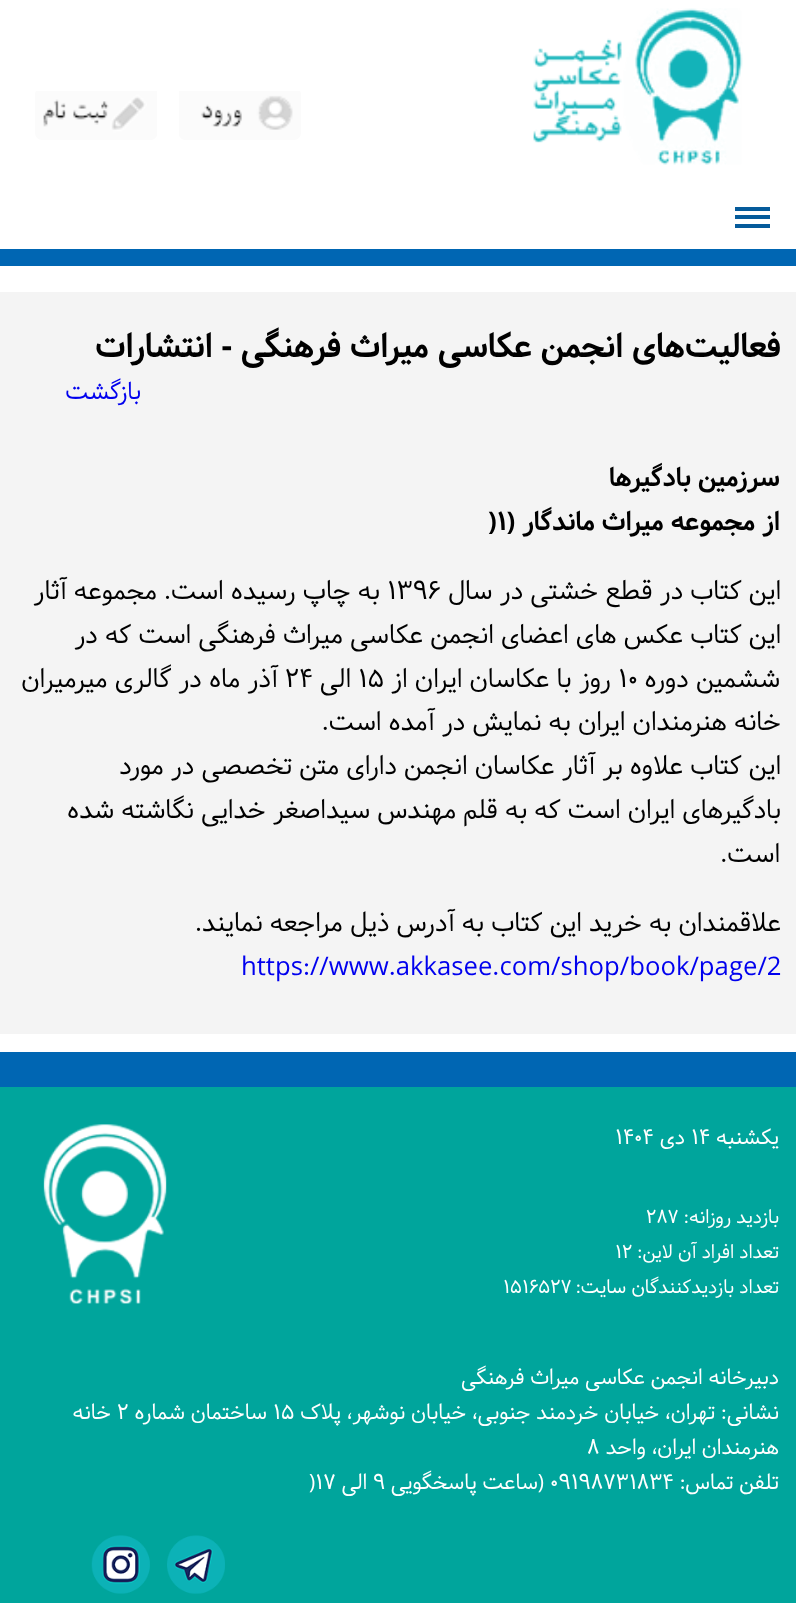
<!DOCTYPE html>
<meta charset="utf-8">
<style>body { margin: 0 } canvas { display: block }</style>
<canvas id="canvas" width="796" height="1603"></canvas>
<script type="module">
  const canvas = document.getElementById("canvas");
  const ctx = canvas.getContext("2d");
  ctx.miterLimit = 4;
  ctx.fontKerning = "normal";
  async function loadImage(src) {
    const img = new Image();
    img.src = src;
    await img.decode();
    return img;
  }

  ctx.fillStyle = "#ffffff";
  ctx.fillRect(0, 0, 796, 1603);
  ctx.drawImage(await loadImage("img1.png"), 533, 8, 210, 157);
  ctx.drawImage(await loadImage("img2.png"), 179, 91, 122, 49);
  ctx.drawImage(await loadImage("img3.png"), 35, 91, 122, 49);
  ctx.fillStyle = "#055b9b";
  ctx.fillRect(735, 207, 35, 4);
  ctx.fillRect(735, 215, 35, 4);
  ctx.fillRect(735, 224, 35, 4);
  ctx.fillStyle = "#0066b3";
  ctx.fillRect(0, 249, 796, 17);
  ctx.fillStyle = "#f4f4f4";
  ctx.fillRect(0, 292, 796, 742);
  ctx.direction = "rtl";
  ctx.font = "bold 32.7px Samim";
  ctx.fillStyle = "#000000";
  ctx.fillText("فعالیت‌های انجمن عکاسی میراث فرهنگی - انتشارات", 781, 357);
  ctx.font = "23.5px Samim";
  ctx.fillStyle = "#0000ee";
  ctx.fillText("بازگشت", 141, 399);
  ctx.font = "bold 25.7px Samim";
  ctx.fillStyle = "#000000";
  ctx.fillText("سرزمین بادگیرها", 780, 486);
  ctx.fillText("از مجموعه میراث ماندگار (", 780, 530);
  ctx.direction = "ltr";
  ctx.fillText(")۱", 488, 530);
  ctx.direction = "rtl";
  ctx.font = "25.7px Samim";
  ctx.fillText("این کتاب در قطع خشتی در سال", 781, 599);
  ctx.direction = "ltr";
  ctx.fillText("۱۳۹۶", 387, 599);
  ctx.direction = "rtl";
  ctx.fillText("به چاپ رسیده است. مجموعه آثار", 380, 599);
  ctx.fillText("این کتاب عکس های اعضای انجمن عکاسی میراث فرهنگی است که در", 781, 643);
  ctx.fillText("ششمین دوره", 780, 687);
  ctx.direction = "ltr";
  ctx.fillText("۱۰", 618, 687);
  ctx.direction = "rtl";
  ctx.fillText("روز با عکاسان ایران از", 611, 687);
  ctx.direction = "ltr";
  ctx.fillText("۱۵", 358, 687);
  ctx.direction = "rtl";
  ctx.fillText("الی", 351, 687);
  ctx.direction = "ltr";
  ctx.fillText("۲۴", 285, 687);
  ctx.direction = "rtl";
  ctx.fillText("آذر ماه در گالری میرمیران", 278, 687);
  ctx.fillText("خانه هنرمندان ایران به نمایش در آمده است.", 781, 730);
  ctx.fillText("این کتاب علاوه بر آثار عکاسان انجمن دارای متن تخصصی در مورد", 781, 774);
  ctx.fillText("بادگیرهای ایران است که به قلم مهندس سیداصغر خدایی نگاشته شده", 781, 818);
  ctx.fillText("است.", 780, 862);
  ctx.fillText("علاقمندان به خرید این کتاب به آدرس ذیل مراجعه نمایند.", 781, 931);
  ctx.direction = "ltr";
  ctx.fillStyle = "#0000ee";
  ctx.fillText("https://www.akkasee.com/shop/book/page/2", 241, 975);
  ctx.fillStyle = "#00a59c";
  ctx.fillRect(0, 1087, 796, 516);
  ctx.fillStyle = "#0066b3";
  ctx.fillRect(0, 1052, 796, 35);
  ctx.direction = "rtl";
  ctx.font = "21px Samim";
  ctx.fillStyle = "#ffffff";
  ctx.fillText("یکشنبه", 779, 1144);
  ctx.direction = "ltr";
  ctx.fillText("۱۴", 691, 1144);
  ctx.direction = "rtl";
  ctx.fillText("دی", 685, 1144);
  ctx.direction = "ltr";
  ctx.fillText("۱۴۰۴", 615, 1144);
  ctx.direction = "rtl";
  ctx.font = "18.75px Samim";
  ctx.fillText("بازدید روزانه:", 779, 1223);
  ctx.direction = "ltr";
  ctx.fillText("۲۸۷", 646, 1223);
  ctx.direction = "rtl";
  ctx.fillText("تعداد افراد آن لاین:", 779, 1258);
  ctx.direction = "ltr";
  ctx.fillText("۱۲", 615, 1258);
  ctx.direction = "rtl";
  ctx.fillText("تعداد بازدیدکنندگان سایت:", 779, 1293);
  ctx.direction = "ltr";
  ctx.fillText("۱۵۱۶۵۲۷", 503, 1293);
  ctx.drawImage(await loadImage("img4.png"), 43, 1124, 124, 180);
  ctx.direction = "rtl";
  ctx.font = "21px Samim";
  ctx.fillText("دبیرخانه انجمن عکاسی میراث فرهنگی", 779, 1384);
  ctx.fillText("نشانی: تهران، خیابان خردمند جنوبی، خیابان نوشهر، پلاک", 779, 1419);
  ctx.direction = "ltr";
  ctx.fillText("۱۵", 273, 1419);
  ctx.direction = "rtl";
  ctx.fillText("ساختمان شماره", 267, 1419);
  ctx.direction = "ltr";
  ctx.fillText("۲", 117, 1419);
  ctx.direction = "rtl";
  ctx.fillText("خانه", 111, 1419);
  ctx.fillText("هنرمندان ایران، واحد", 779, 1454);
  ctx.direction = "ltr";
  ctx.fillText("۸", 587, 1454);
  ctx.direction = "rtl";
  ctx.fillText("تلفن تماس:", 779, 1489);
  ctx.direction = "ltr";
  ctx.fillText("۰۹۱۹۸۷۳۱۸۳۴", 550, 1489);
  ctx.direction = "rtl";
  ctx.fillText("(ساعت پاسخگویی", 544, 1489);
  ctx.direction = "ltr";
  ctx.fillText("۹", 373, 1489);
  ctx.direction = "rtl";
  ctx.fillText("الی", 367, 1489);
  ctx.direction = "ltr";
  ctx.fillText(")۱۷", 309, 1489);
  ctx.drawImage(await loadImage("img5.png"), 167, 1535, 58, 59);
  ctx.drawImage(await loadImage("img6.png"), 91, 1535, 59, 59);
</script>
